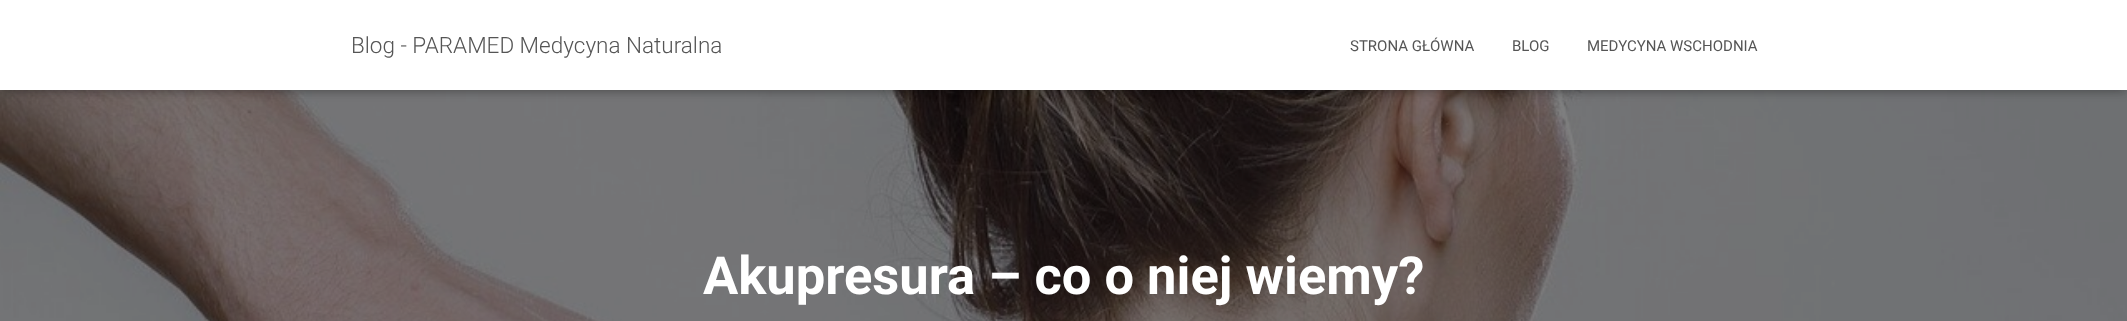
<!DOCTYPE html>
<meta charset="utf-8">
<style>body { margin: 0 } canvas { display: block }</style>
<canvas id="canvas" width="2127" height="321"></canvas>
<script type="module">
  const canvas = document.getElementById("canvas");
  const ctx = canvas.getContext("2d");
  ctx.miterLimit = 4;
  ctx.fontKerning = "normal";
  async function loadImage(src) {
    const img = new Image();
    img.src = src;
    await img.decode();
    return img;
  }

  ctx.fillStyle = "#ffffff";
  ctx.fillRect(0, 0, 2127, 321);
  ctx.drawImage(await loadImage("img1.png"), 0, 90, 2127, 231);
  ctx.fillStyle = "rgba(0, 0, 0, 0.1)";
  ctx.filter = "blur(3px)";
  ctx.beginPath();
  ctx.rect(3, 8, 2122, 85);
  ctx.fill();
  ctx.filter = "none";
  ctx.fillStyle = "rgba(0, 0, 0, 0.12)";
  ctx.filter = "blur(6px)";
  ctx.beginPath();
  ctx.rect(0, 1, 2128, 90);
  ctx.fill();
  ctx.filter = "none";
  ctx.fillStyle = "rgba(0, 0, 0, 0.42)";
  ctx.filter = "blur(6px)";
  ctx.beginPath();
  ctx.rect(8, 9, 2112, 75);
  ctx.fill();
  ctx.filter = "none";
  ctx.fillStyle = "#ffffff";
  ctx.fillRect(0, 0, 2127, 90);
  ctx.font = "300 22.5px Roboto";
  ctx.fillStyle = "#555555";
  ctx.fillText("Blog - PARAMED Medycyna Naturalna", 351, 53);
  ctx.font = "15px Roboto";
  ctx.fillText("STRONA GŁÓWNA", 1350, 51);
  ctx.fillText("BLOG", 1512, 51);
  ctx.fillText("MEDYCYNA WSCHODNIA", 1587, 51);
  ctx.font = "bold 52.5px Roboto";
  ctx.fillStyle = "#ffffff";
  ctx.fillText("Akupresura – co o niej wiemy?", 703, 294);
</script>
